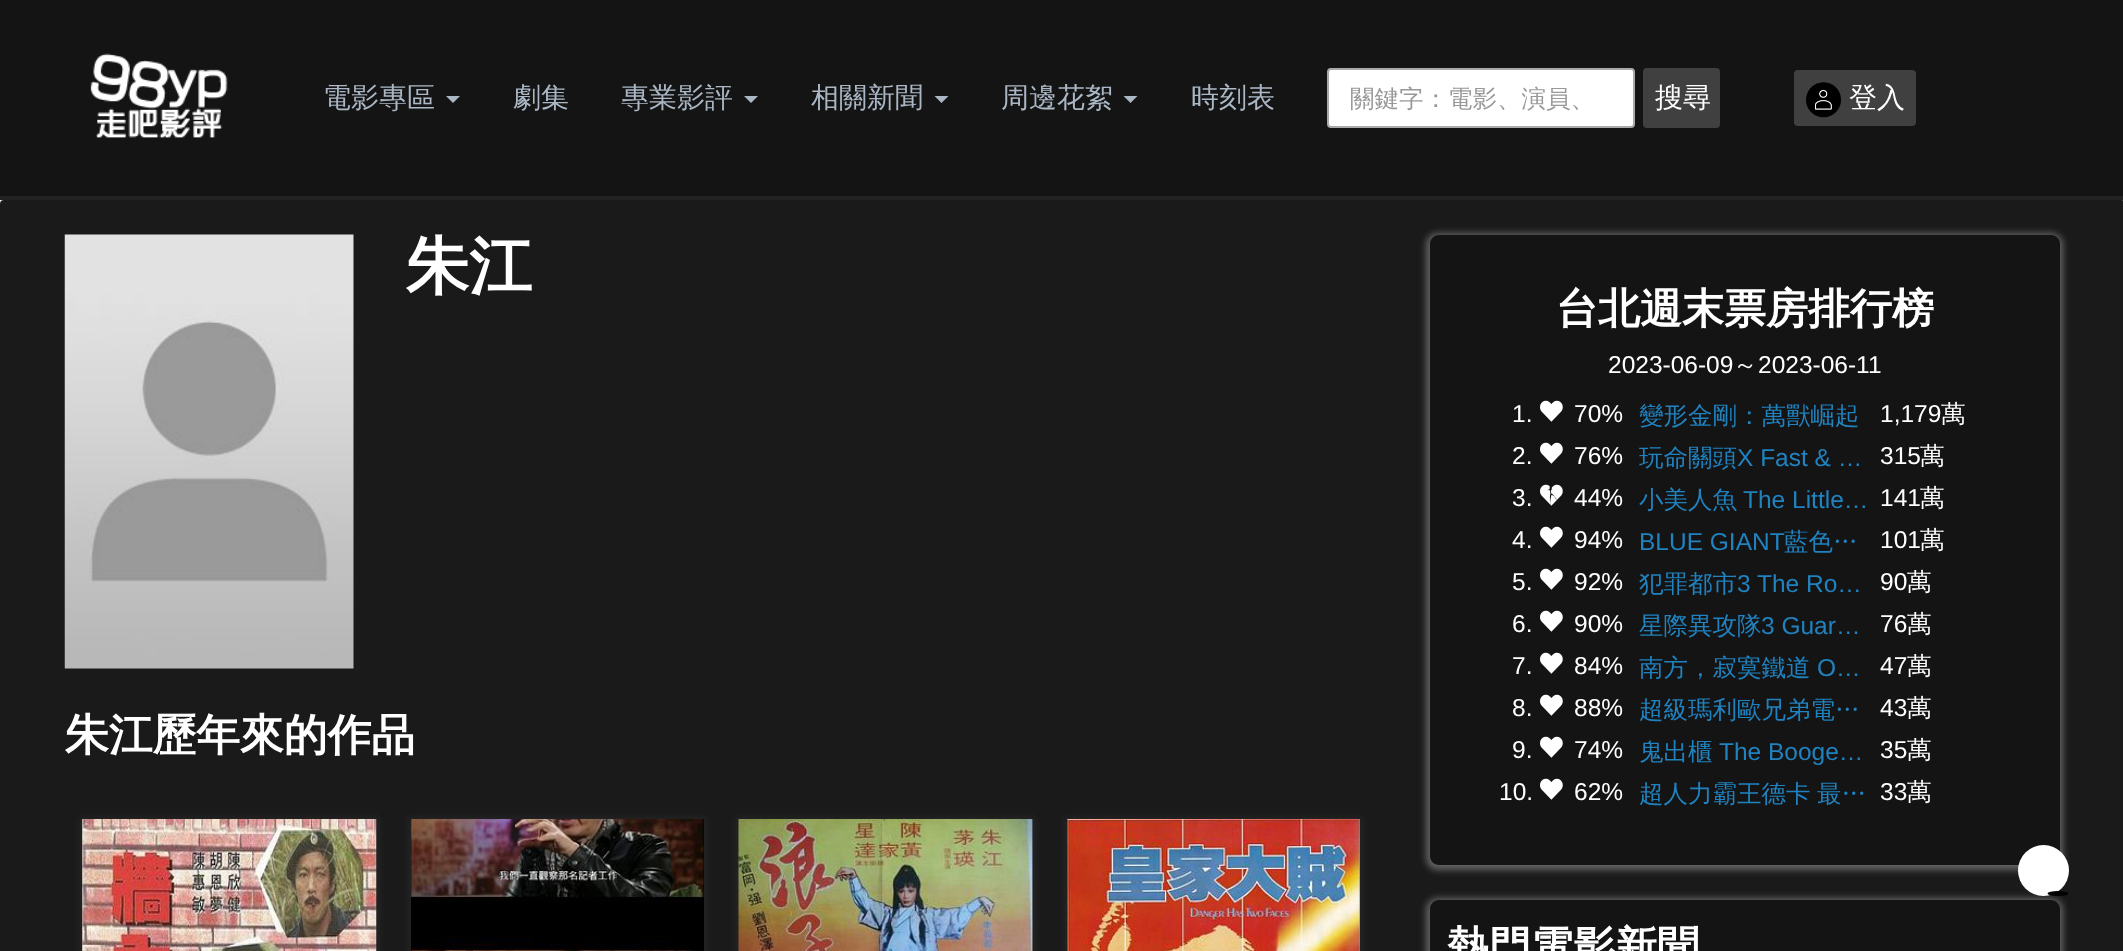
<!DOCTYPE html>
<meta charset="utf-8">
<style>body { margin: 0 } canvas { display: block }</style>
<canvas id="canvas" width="2123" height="951"></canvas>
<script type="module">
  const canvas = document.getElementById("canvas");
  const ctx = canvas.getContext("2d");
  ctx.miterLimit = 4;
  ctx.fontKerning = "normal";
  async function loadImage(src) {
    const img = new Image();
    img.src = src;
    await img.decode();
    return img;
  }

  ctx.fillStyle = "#ffffff";
  ctx.fillRect(0, 0, 2123, 951);
  ctx.fillStyle = "#141415";
  ctx.fillRect(0, 0, 2123, 196);
  ctx.fillStyle = "#232323";
  ctx.fillRect(0, 196, 2123, 4);
  ctx.drawImage(await loadImage("img1.png"), 90, 53, 138, 85);
  ctx.font = "500 28px WenQuanYi Zen Hei";
  ctx.fillStyle = "#abb7c4";
  ctx.fillText("電影專區", 323, 107);
  ctx.beginPath();
  ctx.moveTo(446, 96);
  ctx.lineTo(460, 96);
  ctx.lineTo(453, 103);
  ctx.closePath();
  ctx.fill();
  ctx.fillText("劇集", 513, 107);
  ctx.fillText("專業影評", 621, 107);
  ctx.beginPath();
  ctx.moveTo(744, 96);
  ctx.lineTo(758, 96);
  ctx.lineTo(751, 103);
  ctx.closePath();
  ctx.fill();
  ctx.fillText("相關新聞", 811, 107);
  ctx.beginPath();
  ctx.moveTo(934.5, 96);
  ctx.lineTo(948.5, 96);
  ctx.lineTo(941.5, 103);
  ctx.closePath();
  ctx.fill();
  ctx.fillText("周邊花絮", 1001, 107);
  ctx.beginPath();
  ctx.moveTo(1123.5, 96);
  ctx.lineTo(1137.5, 96);
  ctx.lineTo(1130.5, 103);
  ctx.closePath();
  ctx.fill();
  ctx.fillText("時刻表", 1191, 107);
  ctx.fillStyle = "#ffffff";
  ctx.beginPath();
  ctx.roundRect(1328, 69, 306, 58, 3);
  ctx.fill();
  ctx.strokeStyle = "#aaaaaa";
  ctx.lineWidth = 2;
  ctx.stroke();
  ctx.font = "500 24.5px WenQuanYi Zen Hei";
  ctx.fillStyle = "#999999";
  ctx.fillText("關鍵字：電影、演員、", 1350, 107);
  ctx.fillStyle = "#404040";
  ctx.beginPath();
  ctx.roundRect(1643, 68, 77, 60, 4);
  ctx.fill();
  ctx.font = "500 28px WenQuanYi Zen Hei";
  ctx.fillStyle = "#ffffff";
  ctx.fillText("搜尋", 1655, 107);
  ctx.fillStyle = "#404040";
  ctx.beginPath();
  ctx.roundRect(1794, 70, 122, 56, 4);
  ctx.fill();
  ctx.drawImage(await loadImage("img2.png"), 1806, 82, 35, 36);
  ctx.fillStyle = "#ffffff";
  ctx.fillText("登入", 1849, 107);
  ctx.fillStyle = "#1a1a1b";
  ctx.beginPath();
  ctx.roundRect(0, 200, 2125, 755, 4);
  ctx.fill();
  ctx.drawImage(await loadImage("img3.png"), 64, 234, 290, 435);
  ctx.font = "bold 63px WenQuanYi Zen Hei";
  ctx.fillStyle = "#ffffff";
  ctx.fillText("朱江", 406, 288);
  ctx.font = "bold 43.75px WenQuanYi Zen Hei";
  ctx.fillText("朱江歷年來的作品", 65, 750);
  ctx.fillStyle = "rgba(132, 132, 132, 0.1)";
  ctx.filter = "blur(3.5px)";
  ctx.beginPath();
  ctx.rect(79, 817, 301, 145);
  ctx.fill();
  ctx.filter = "none";
  ctx.drawImage(await loadImage("img4.png"), 82, 819, 295, 132);
  ctx.filter = "blur(3.5px)";
  ctx.beginPath();
  ctx.rect(408, 817, 299, 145);
  ctx.fill();
  ctx.filter = "none";
  ctx.fillStyle = "#000000";
  ctx.fillRect(411, 819, 293, 132);
  ctx.drawImage(await loadImage("img5.png"), 411, 819, 293, 132);
  ctx.fillStyle = "rgba(132, 132, 132, 0.1)";
  ctx.filter = "blur(3.5px)";
  ctx.beginPath();
  ctx.rect(735, 817, 301, 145);
  ctx.fill();
  ctx.filter = "none";
  ctx.fillStyle = "#000000";
  ctx.fillRect(1032, 819, 1, 132);
  ctx.drawImage(await loadImage("img6.png"), 738, 819, 295, 132);
  ctx.fillStyle = "rgba(132, 132, 132, 0.1)";
  ctx.filter = "blur(3.5px)";
  ctx.beginPath();
  ctx.rect(1064, 817, 299, 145);
  ctx.fill();
  ctx.filter = "none";
  ctx.drawImage(await loadImage("img7.png"), 1067, 819, 293, 132);
  ctx.save();
  ctx.beginPath();
  ctx.moveTo(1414, 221);
  ctx.lineTo(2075, 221);
  ctx.lineTo(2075, 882);
  ctx.lineTo(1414, 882);
  ctx.closePath();
  ctx.moveTo(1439, 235);
  ctx.lineTo(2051, 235);
  ctx.bezierCurveTo(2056, 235, 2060, 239, 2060, 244);
  ctx.lineTo(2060, 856);
  ctx.bezierCurveTo(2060, 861, 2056, 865, 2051, 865);
  ctx.lineTo(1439, 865);
  ctx.bezierCurveTo(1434, 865, 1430, 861, 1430, 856);
  ctx.lineTo(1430, 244);
  ctx.bezierCurveTo(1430, 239, 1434, 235, 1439, 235);
  ctx.closePath();
  ctx.clip("evenodd");
  ctx.fillStyle = "rgba(171, 171, 171, 0.5)";
  ctx.filter = "blur(3.5px)";
  ctx.beginPath();
  ctx.roundRect(1426, 233, 637, 637, 12);
  ctx.fill();
  ctx.filter = "none";
  ctx.restore();
  ctx.fillStyle = "rgba(0, 0, 0, 0.21)";
  ctx.beginPath();
  ctx.roundRect(1430, 235, 630, 630, 9);
  ctx.fill();
  ctx.font = "bold 42px WenQuanYi Zen Hei";
  ctx.fillStyle = "#ffffff";
  ctx.fillText("台北週末票房排行榜", 1556, 323);
  ctx.font = "24.5px Liberation Sans";
  ctx.fillText("2023-06-09", 1608, 373);
  ctx.font = "500 24.5px WenQuanYi Zen Hei";
  ctx.fillText("～", 1733, 373);
  ctx.font = "24.5px Liberation Sans";
  ctx.fillText("2023-06-11", 1758, 373);
  ctx.fillText("1.", 1512, 422);
  ctx.drawImage(await loadImage("img8.png"), 1540, 400, 23, 22);
  ctx.fillText("70%", 1574, 422);
  ctx.font = "500 24.5px WenQuanYi Zen Hei";
  ctx.fillStyle = "#2082bf";
  ctx.fillText("變形金剛：萬獸崛起", 1639, 424);
  ctx.font = "24.5px Liberation Sans";
  ctx.fillStyle = "#ffffff";
  ctx.fillText("1,179", 1880, 422);
  ctx.font = "500 24.5px WenQuanYi Zen Hei";
  ctx.fillText("萬", 1941, 422);
  ctx.font = "24.5px Liberation Sans";
  ctx.fillText("2.", 1512, 464);
  ctx.drawImage(await loadImage("img8.png"), 1540, 442, 23, 22);
  ctx.fillText("76%", 1574, 464);
  ctx.font = "500 24.5px WenQuanYi Zen Hei";
  ctx.fillStyle = "#2082bf";
  ctx.fillText("玩命關頭", 1639, 466);
  ctx.font = "24.5px Liberation Sans";
  ctx.fillText("X Fast & …", 1737, 466);
  ctx.fillStyle = "#ffffff";
  ctx.fillText("315", 1880, 464);
  ctx.font = "500 24.5px WenQuanYi Zen Hei";
  ctx.fillText("萬", 1920, 464);
  ctx.font = "24.5px Liberation Sans";
  ctx.fillText("3.", 1512, 506);
  ctx.drawImage(await loadImage("img9.png"), 1540, 484, 23, 22);
  ctx.fillText("44%", 1574, 506);
  ctx.font = "500 24.5px WenQuanYi Zen Hei";
  ctx.fillStyle = "#2082bf";
  ctx.fillText("小美人魚", 1639, 508);
  ctx.font = "24.5px Liberation Sans";
  ctx.fillText("The Little…", 1743, 508);
  ctx.fillStyle = "#ffffff";
  ctx.fillText("141", 1880, 506);
  ctx.font = "500 24.5px WenQuanYi Zen Hei";
  ctx.fillText("萬", 1920, 506);
  ctx.font = "24.5px Liberation Sans";
  ctx.fillText("4.", 1512, 548);
  ctx.drawImage(await loadImage("img8.png"), 1540, 526, 23, 22);
  ctx.fillText("94%", 1574, 548);
  ctx.fillStyle = "#2082bf";
  ctx.fillText("BLUE GIANT", 1639, 550);
  ctx.font = "500 24.5px WenQuanYi Zen Hei";
  ctx.fillText("藍色…", 1784, 550);
  ctx.font = "24.5px Liberation Sans";
  ctx.fillStyle = "#ffffff";
  ctx.fillText("101", 1880, 548);
  ctx.font = "500 24.5px WenQuanYi Zen Hei";
  ctx.fillText("萬", 1920, 548);
  ctx.font = "24.5px Liberation Sans";
  ctx.fillText("5.", 1512, 590);
  ctx.drawImage(await loadImage("img8.png"), 1540, 568, 23, 22);
  ctx.fillText("92%", 1574, 590);
  ctx.font = "500 24.5px WenQuanYi Zen Hei";
  ctx.fillStyle = "#2082bf";
  ctx.fillText("犯罪都市", 1639, 592);
  ctx.font = "24.5px Liberation Sans";
  ctx.fillText("3 The Ro…", 1737, 592);
  ctx.fillStyle = "#ffffff";
  ctx.fillText("90", 1880, 590);
  ctx.font = "500 24.5px WenQuanYi Zen Hei";
  ctx.fillText("萬", 1907, 590);
  ctx.font = "24.5px Liberation Sans";
  ctx.fillText("6.", 1512, 632);
  ctx.drawImage(await loadImage("img8.png"), 1540, 610, 23, 22);
  ctx.fillText("90%", 1574, 632);
  ctx.font = "500 24.5px WenQuanYi Zen Hei";
  ctx.fillStyle = "#2082bf";
  ctx.fillText("星際異攻隊", 1639, 634);
  ctx.font = "24.5px Liberation Sans";
  ctx.fillText("3 Guar…", 1761, 634);
  ctx.fillStyle = "#ffffff";
  ctx.fillText("76", 1880, 632);
  ctx.font = "500 24.5px WenQuanYi Zen Hei";
  ctx.fillText("萬", 1907, 632);
  ctx.font = "24.5px Liberation Sans";
  ctx.fillText("7.", 1512, 674);
  ctx.drawImage(await loadImage("img8.png"), 1540, 652, 23, 22);
  ctx.fillText("84%", 1574, 674);
  ctx.font = "500 24.5px WenQuanYi Zen Hei";
  ctx.fillStyle = "#2082bf";
  ctx.fillText("南方，寂寞鐵道", 1639, 676);
  ctx.font = "24.5px Liberation Sans";
  ctx.fillText("O…", 1817, 676);
  ctx.fillStyle = "#ffffff";
  ctx.fillText("47", 1880, 674);
  ctx.font = "500 24.5px WenQuanYi Zen Hei";
  ctx.fillText("萬", 1907, 674);
  ctx.font = "24.5px Liberation Sans";
  ctx.fillText("8.", 1512, 716);
  ctx.drawImage(await loadImage("img8.png"), 1540, 694, 23, 22);
  ctx.fillText("88%", 1574, 716);
  ctx.font = "500 24.5px WenQuanYi Zen Hei";
  ctx.fillStyle = "#2082bf";
  ctx.fillText("超級瑪利歐兄弟電…", 1639, 718);
  ctx.font = "24.5px Liberation Sans";
  ctx.fillStyle = "#ffffff";
  ctx.fillText("43", 1880, 716);
  ctx.font = "500 24.5px WenQuanYi Zen Hei";
  ctx.fillText("萬", 1907, 716);
  ctx.font = "24.5px Liberation Sans";
  ctx.fillText("9.", 1512, 758);
  ctx.drawImage(await loadImage("img8.png"), 1540, 736, 23, 22);
  ctx.fillText("74%", 1574, 758);
  ctx.font = "500 24.5px WenQuanYi Zen Hei";
  ctx.fillStyle = "#2082bf";
  ctx.fillText("鬼出櫃", 1639, 760);
  ctx.font = "24.5px Liberation Sans";
  ctx.fillText("The Booge…", 1719, 760);
  ctx.fillStyle = "#ffffff";
  ctx.fillText("35", 1880, 758);
  ctx.font = "500 24.5px WenQuanYi Zen Hei";
  ctx.fillText("萬", 1907, 758);
  ctx.font = "24.5px Liberation Sans";
  ctx.fillText("10.", 1499, 800);
  ctx.drawImage(await loadImage("img8.png"), 1540, 778, 23, 22);
  ctx.fillText("62%", 1574, 800);
  ctx.font = "500 24.5px WenQuanYi Zen Hei";
  ctx.fillStyle = "#2082bf";
  ctx.fillText("超人力霸王德卡", 1639, 802);
  ctx.fillText("最…", 1817, 802);
  ctx.font = "24.5px Liberation Sans";
  ctx.fillStyle = "#ffffff";
  ctx.fillText("33", 1880, 800);
  ctx.font = "500 24.5px WenQuanYi Zen Hei";
  ctx.fillText("萬", 1907, 800);
  ctx.save();
  ctx.beginPath();
  ctx.moveTo(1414, 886);
  ctx.lineTo(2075, 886);
  ctx.lineTo(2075, 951);
  ctx.lineTo(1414, 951);
  ctx.closePath();
  ctx.moveTo(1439, 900);
  ctx.lineTo(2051, 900);
  ctx.bezierCurveTo(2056, 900, 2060, 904, 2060, 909);
  ctx.lineTo(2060, 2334);
  ctx.bezierCurveTo(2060, 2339, 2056, 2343, 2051, 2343);
  ctx.lineTo(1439, 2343);
  ctx.bezierCurveTo(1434, 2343, 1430, 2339, 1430, 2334);
  ctx.lineTo(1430, 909);
  ctx.bezierCurveTo(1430, 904, 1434, 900, 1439, 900);
  ctx.closePath();
  ctx.clip("evenodd");
  ctx.fillStyle = "rgba(171, 171, 171, 0.5)";
  ctx.filter = "blur(3.5px)";
  ctx.beginPath();
  ctx.roundRect(1426, 898, 637, 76, 12);
  ctx.fill();
  ctx.filter = "none";
  ctx.restore();
  ctx.fillStyle = "rgba(0, 0, 0, 0.21)";
  ctx.beginPath();
  ctx.roundRect(1430, 900, 630, 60, 9);
  ctx.fill();
  ctx.font = "bold 42px WenQuanYi Zen Hei";
  ctx.fillStyle = "#ffffff";
  ctx.fillText("熱門電影新聞", 1447, 961);
  ctx.beginPath();
  ctx.arc(2043.5, 870.5, 25.5, 0, Math.PI * 2);
  ctx.fill();
  ctx.fillStyle = "#000000";
  ctx.beginPath();
  ctx.ellipse(2058, 893.5, 10.5, 2.5, 0, 0, Math.PI * 2);
  ctx.fill();
</script>
